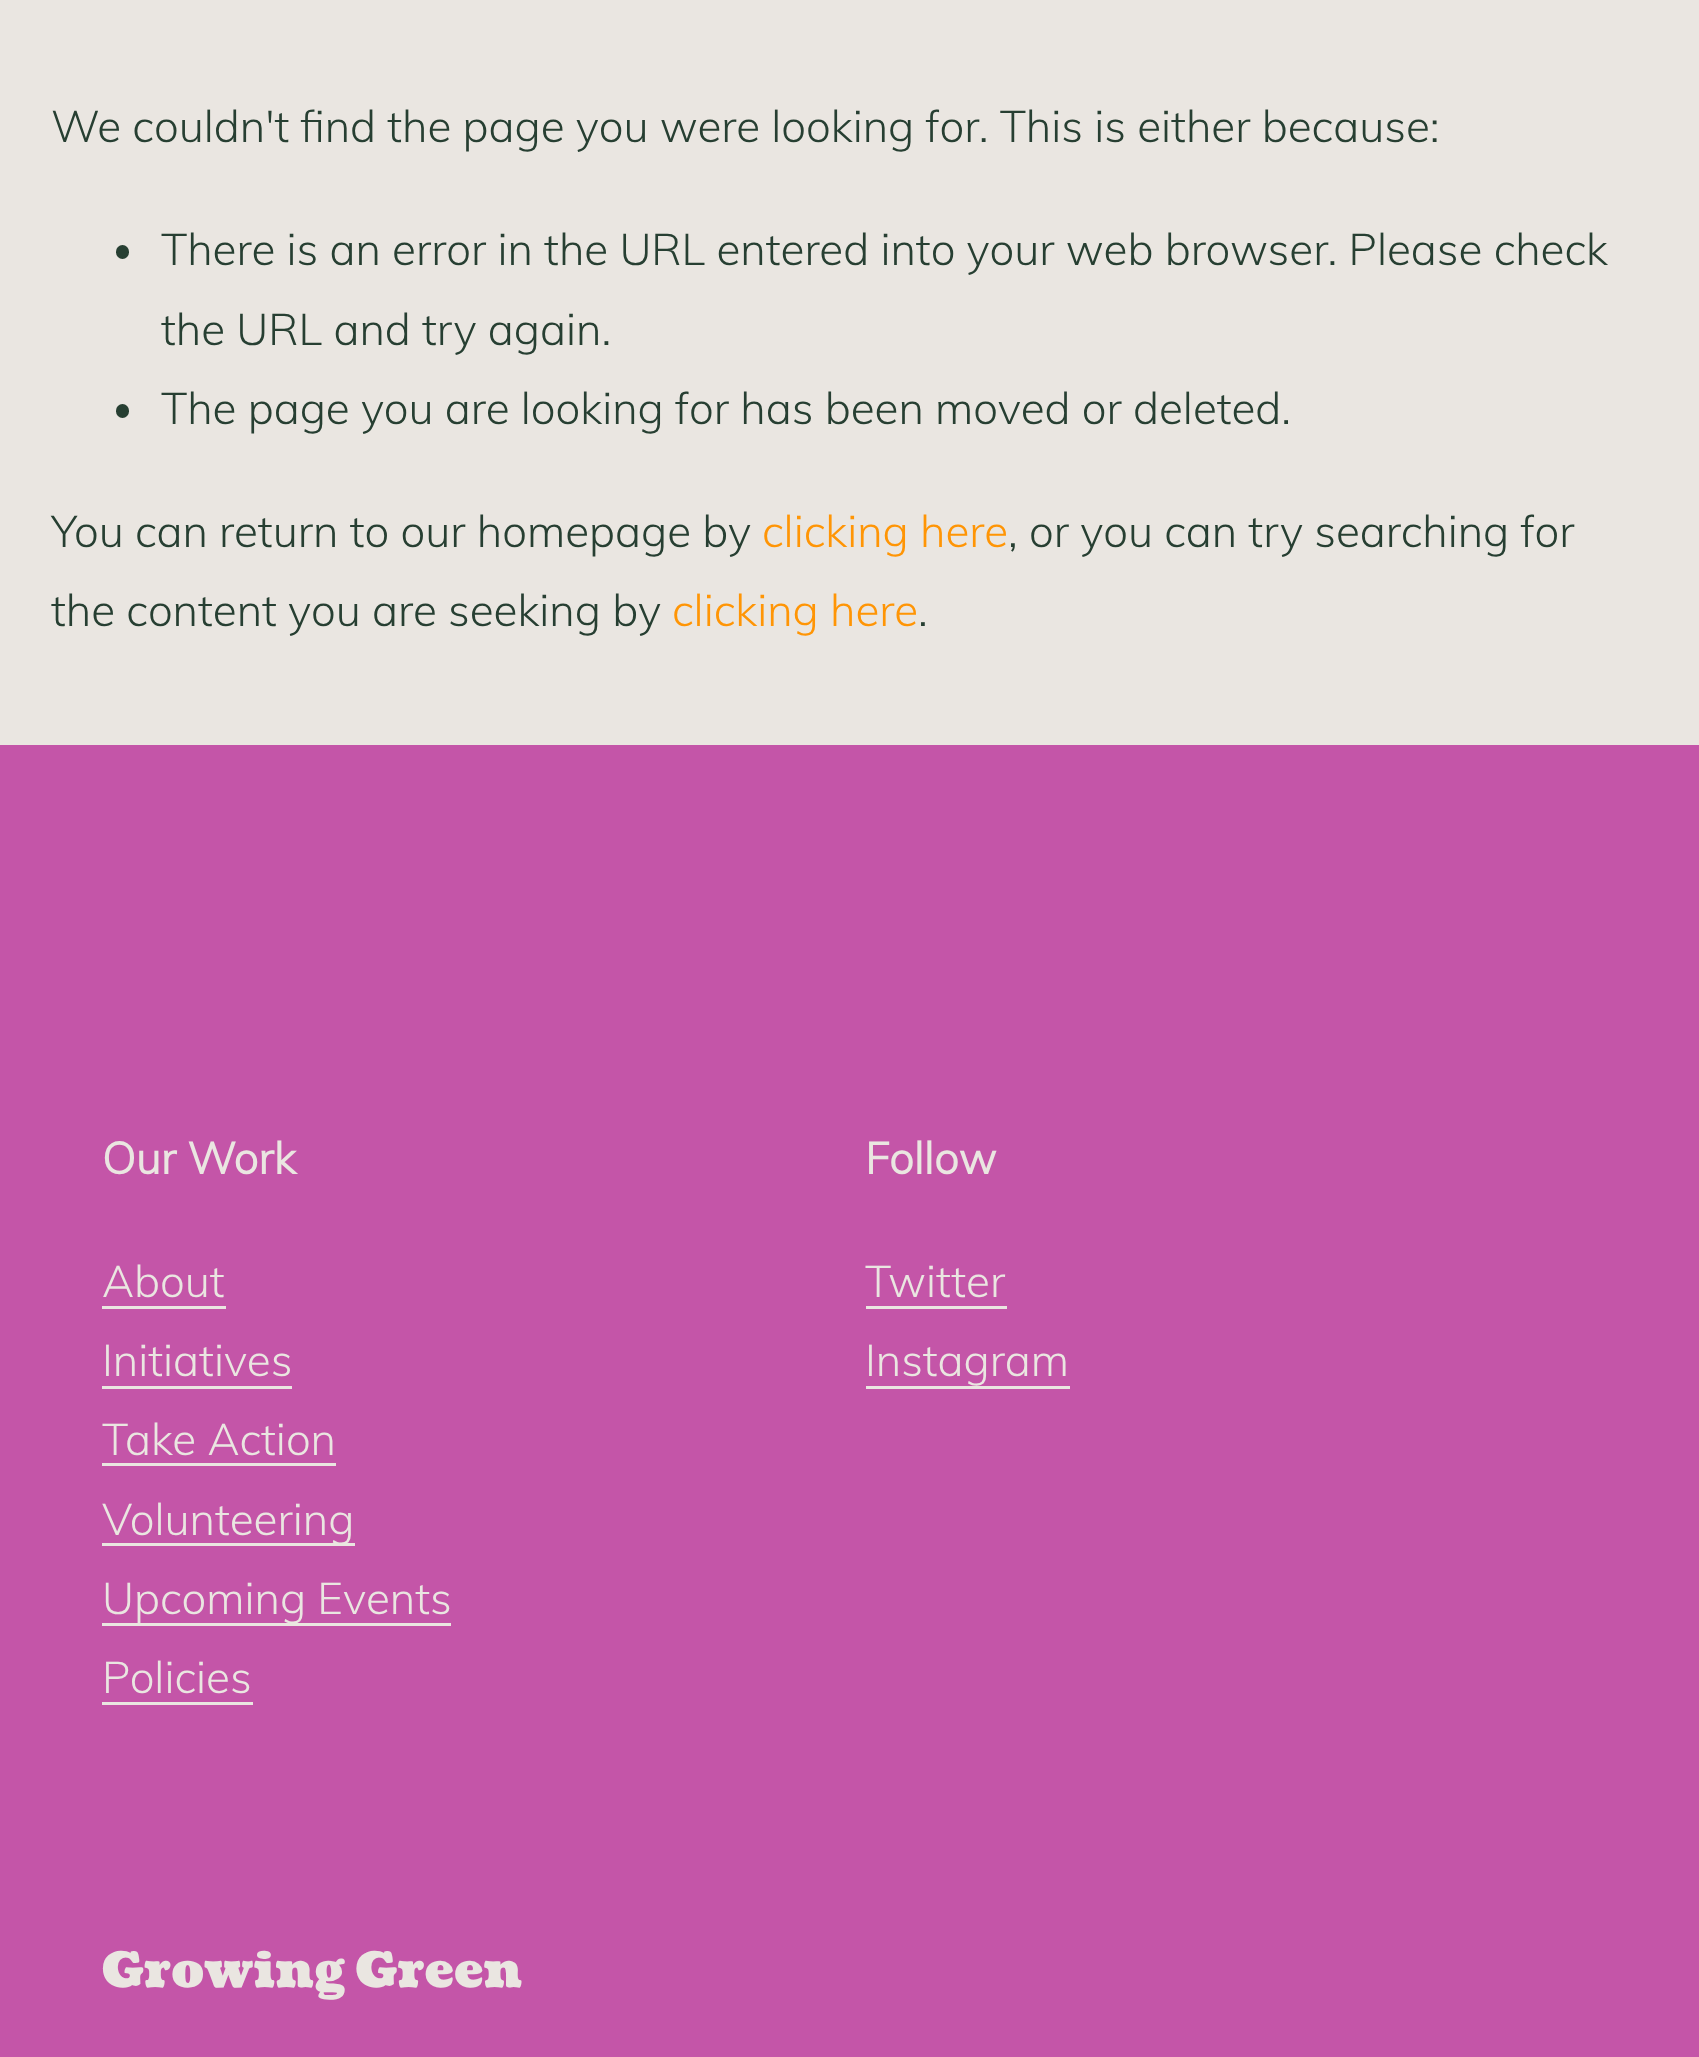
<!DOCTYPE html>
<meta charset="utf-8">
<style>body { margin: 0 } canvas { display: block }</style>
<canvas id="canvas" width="1699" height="2057"></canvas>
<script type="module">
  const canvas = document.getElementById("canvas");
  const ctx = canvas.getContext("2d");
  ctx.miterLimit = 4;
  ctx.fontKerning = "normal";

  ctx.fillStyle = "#eae6e1";
  ctx.fillRect(0, 0, 1699, 2057);
  ctx.font = "300 44px Muli";
  ctx.fillStyle = "#273f32";
  ctx.fillText("We couldn't find the page you were looking for. This is either because:", 51, 142);
  ctx.beginPath();
  ctx.roundRect(116, 245, 13, 14, 6.5);
  ctx.fill();
  ctx.fillText("There is an error in the URL entered into your web browser. Please check", 161, 265);
  ctx.fillText("the URL and try again.", 161, 345);
  ctx.beginPath();
  ctx.roundRect(116, 404, 13, 14, 6.5);
  ctx.fill();
  ctx.fillText("The page you are looking for has been moved or deleted.", 161, 424);
  ctx.fillText("You can return to our homepage by", 51, 547);
  ctx.fillStyle = "#ff9505";
  ctx.fillText("clicking here", 762, 547);
  ctx.fillStyle = "#273f32";
  ctx.fillText(", or you can try searching for", 1008, 547);
  ctx.fillText("the content you are seeking by", 51, 626);
  ctx.fillStyle = "#ff9505";
  ctx.fillText("clicking here", 672, 626);
  ctx.fillStyle = "#273f32";
  ctx.fillText(".", 918, 626);
  ctx.fillStyle = "#c455a8";
  ctx.fillRect(0, 745, 1699, 1312);
  ctx.font = "bold 44px Muli";
  ctx.fillStyle = "#eae6e1";
  ctx.fillText("Our Work", 102, 1174);
  ctx.font = "300 44px Muli";
  ctx.fillText("About", 102, 1297);
  ctx.fillRect(102, 1306, 124, 3);
  ctx.fillText("Initiatives", 102, 1376);
  ctx.fillRect(102, 1386, 190, 3);
  ctx.fillText("Take Action", 102, 1455);
  ctx.fillRect(102, 1463, 234, 3);
  ctx.fillRect(102, 1543, 253, 3);
  ctx.fillText("Volunteering", 102, 1535);
  ctx.fillRect(102, 1623, 349, 3);
  ctx.fillText("Upcoming Events", 102, 1614);
  ctx.fillText("Policies", 102, 1693);
  ctx.fillRect(102, 1702, 151, 3);
  ctx.font = "bold 44px Muli";
  ctx.fillText("Follow", 865, 1174);
  ctx.font = "300 44px Muli";
  ctx.fillText("Twitter", 865, 1297);
  ctx.fillRect(866, 1306, 141, 3);
  ctx.fillText("Instagram", 865, 1376);
  ctx.fillRect(866, 1386, 204, 3);
  ctx.font = "900 49px Coustard";
  ctx.fillText("Growing Green", 102, 1987);
</script>
